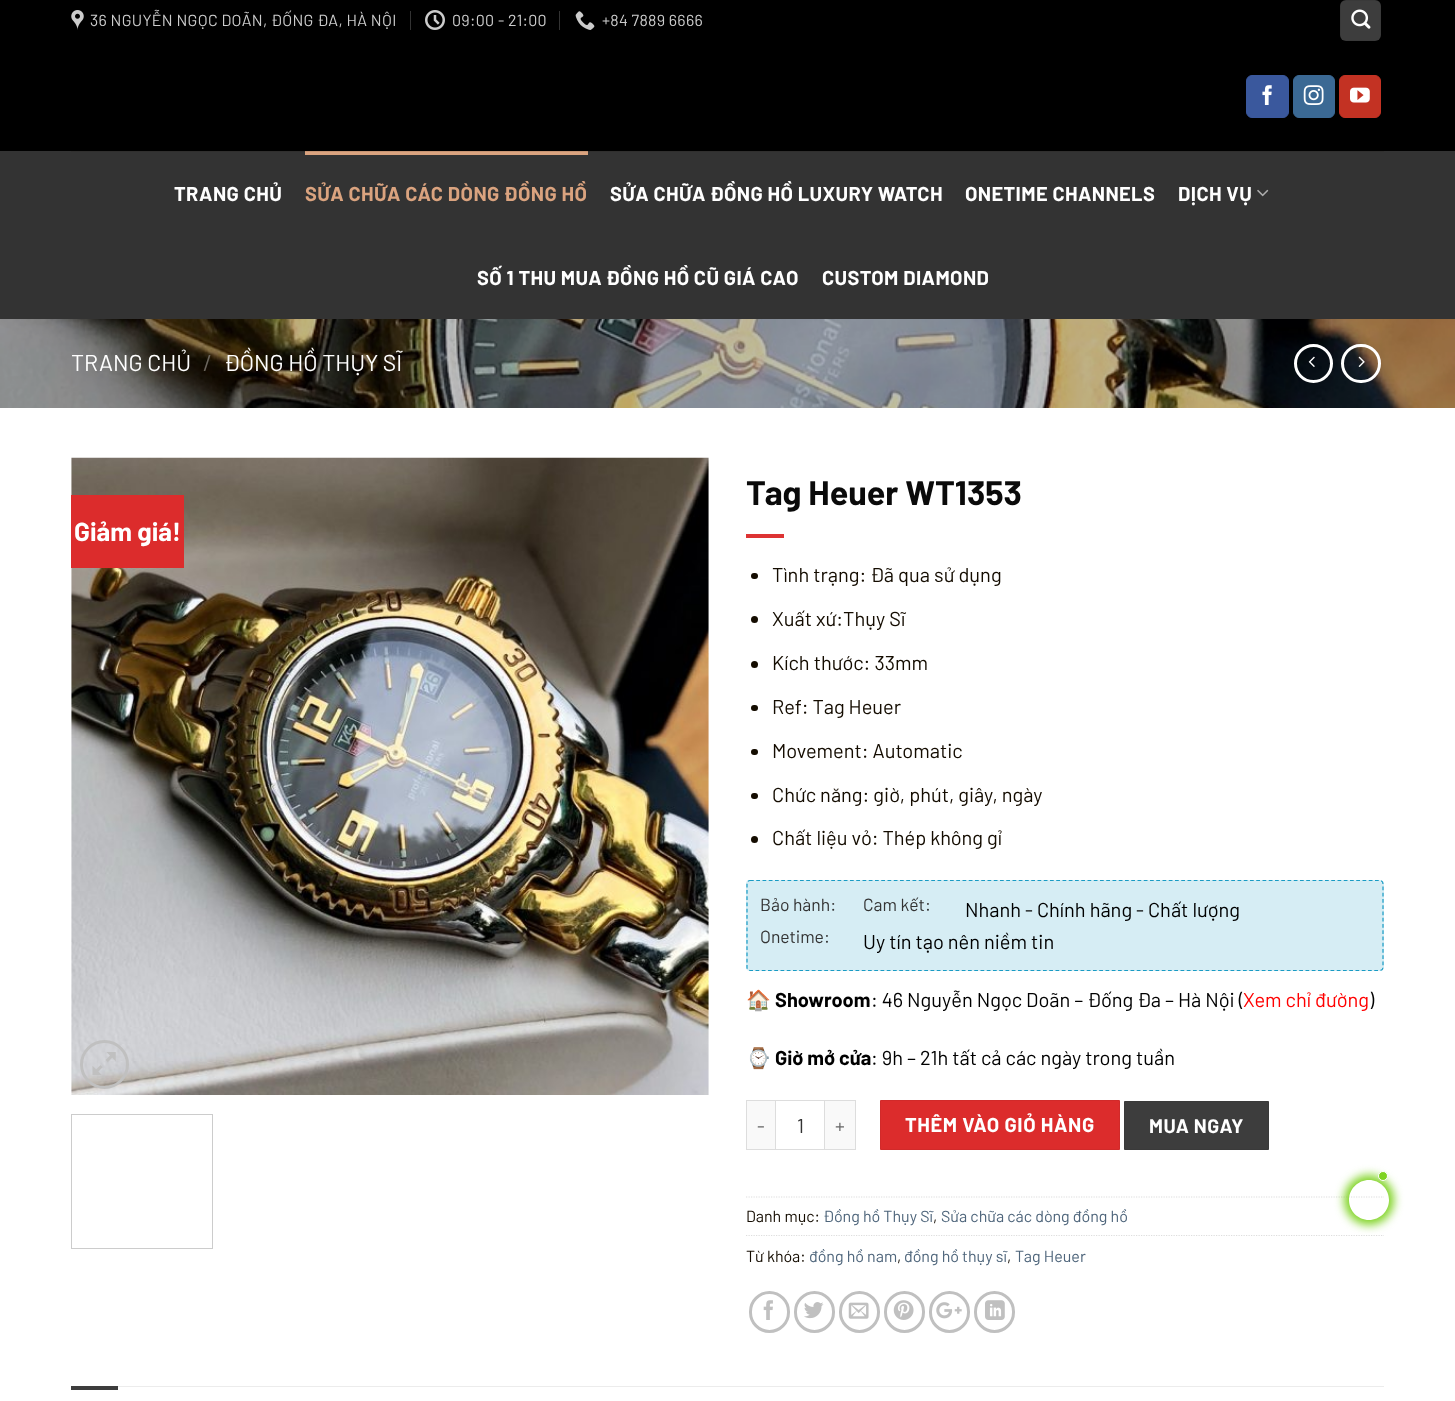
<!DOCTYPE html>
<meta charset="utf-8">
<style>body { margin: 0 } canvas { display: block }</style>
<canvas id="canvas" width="1455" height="1401"></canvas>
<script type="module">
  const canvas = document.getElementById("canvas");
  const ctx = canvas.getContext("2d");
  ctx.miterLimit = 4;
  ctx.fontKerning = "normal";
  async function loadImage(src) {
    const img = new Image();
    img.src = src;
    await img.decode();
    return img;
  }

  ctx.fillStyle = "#ffffff";
  ctx.fillRect(0, 0, 1455, 1401);
  ctx.fillStyle = "#000000";
  ctx.fillRect(0, 0, 1455, 151);
  ctx.drawImage(await loadImage("img1.png"), 71, 10, 13, 20);
  ctx.letterSpacing = "0.3px";
  ctx.font = "16px Barlow";
  ctx.fillStyle = "#cccccc";
  ctx.fillText("36 NGUYỄN NGỌC DOÃN, ĐỐNG ĐA, HÀ NỘI", 90, 26);
  ctx.fillStyle = "#333333";
  ctx.fillRect(410, 11, 1, 19);
  ctx.drawImage(await loadImage("img2.png"), 425, 10, 20, 20);
  ctx.fillStyle = "#cccccc";
  ctx.fillText("09:00 - 21:00", 452, 26);
  ctx.fillStyle = "#333333";
  ctx.fillRect(559, 11, 1, 19);
  ctx.drawImage(await loadImage("img3.png"), 575, 11, 20, 19);
  ctx.fillStyle = "#cccccc";
  ctx.fillText("+84 7889 6666", 602, 26);
  ctx.fillStyle = "#3d3d3d";
  ctx.beginPath();
  ctx.roundRect(1340, 0, 41, 41, 6);
  ctx.fill();
  ctx.strokeStyle = "rgba(0, 0, 0, 0.05)";
  ctx.strokeRect(1340.5, 0.5, 40, 40);
  ctx.drawImage(await loadImage("img4.png"), 1351, 9, 20, 20);
  ctx.fillStyle = "#3a589d";
  ctx.beginPath();
  ctx.roundRect(1246.5, 75.5, 42, 42, 5.5);
  ctx.fill();
  ctx.strokeStyle = "#3a589d";
  ctx.stroke();
  ctx.drawImage(await loadImage("img5.png"), 1262, 85, 10, 20);
  ctx.fillStyle = "#3b6994";
  ctx.beginPath();
  ctx.roundRect(1293.5, 75.5, 41, 42, 5.5);
  ctx.fill();
  ctx.strokeStyle = "#3b6994";
  ctx.stroke();
  ctx.drawImage(await loadImage("img6.png"), 1303, 85, 21, 20);
  ctx.fillStyle = "#c33223";
  ctx.beginPath();
  ctx.roundRect(1339.5, 75.5, 41, 42, 5.5);
  ctx.fill();
  ctx.strokeStyle = "#c33223";
  ctx.stroke();
  ctx.drawImage(await loadImage("img7.png"), 1350, 87, 20, 16);
  ctx.fillStyle = "#333333";
  ctx.fillRect(0, 151, 1455, 168);
  ctx.fillStyle = "#302f2e";
  ctx.fillRect(71, 151, 1313, 1);
  ctx.letterSpacing = "0.4px";
  ctx.font = "bold 20px Barlow";
  ctx.fillStyle = "#ffffff";
  ctx.fillText("TRANG CHỦ", 174, 201);
  ctx.fillStyle = "#daa37f";
  ctx.fillRect(305, 152, 283, 3);
  ctx.fillStyle = "#c69472";
  ctx.fillRect(305, 151, 283, 1);
  ctx.fillStyle = "#daa37f";
  ctx.fillText("SỬA CHỮA CÁC DÒNG ĐỒNG HỒ", 305, 201);
  ctx.fillStyle = "#ffffff";
  ctx.fillText("SỬA CHỮA ĐỒNG HỒ LUXURY WATCH", 610, 201);
  ctx.fillText("ONETIME CHANNELS", 965, 201);
  ctx.fillText("DỊCH VỤ", 1178, 201);
  ctx.drawImage(await loadImage("img8.png"), 1257, 189, 12, 8);
  ctx.fillText("SỐ 1 THU MUA ĐỒNG HỒ CŨ GIÁ CAO", 477, 285);
  ctx.fillText("CUSTOM DIAMOND", 822, 285);
  ctx.drawImage(await loadImage("img9.png"), 0, 319, 1455, 89);
  ctx.letterSpacing = "0px";
  ctx.font = "23px Barlow";
  ctx.fillText("TRANG CHỦ", 71, 371);
  ctx.fillStyle = "#69645c";
  ctx.fillText("/", 203, 371);
  ctx.fillStyle = "#ffffff";
  ctx.fillText("ĐỒNG HỒ THỤY SĨ", 224, 371);
  ctx.beginPath();
  ctx.arc(1313.5, 363.5, 18, 0, Math.PI * 2);
  ctx.strokeStyle = "#ffffff";
  ctx.lineWidth = 3;
  ctx.stroke();
  ctx.drawImage(await loadImage("img10.png"), 1308, 356, 7, 11);
  ctx.beginPath();
  ctx.roundRect(1342.5, 345.5, 37, 36, 18);
  ctx.stroke();
  ctx.drawImage(await loadImage("img11.png"), 1358, 356, 7, 11);
  ctx.drawImage(await loadImage("img12.png"), 71, 457, 638, 638);
  ctx.fillStyle = "#dc2c2c";
  ctx.fillRect(71, 495, 113, 73);
  ctx.font = "bold 26px Barlow";
  ctx.fillStyle = "#ffffff";
  ctx.fillText("Giảm giá!", 74, 541);
  ctx.beginPath();
  ctx.arc(104.5, 1064.5, 23, 0, Math.PI * 2);
  ctx.strokeStyle = "#c0c0c0";
  ctx.stroke();
  ctx.drawImage(await loadImage("img13.png"), 92, 1052, 24, 23);
  ctx.strokeStyle = "#cccccc";
  ctx.lineWidth = 1;
  ctx.strokeRect(71.5, 1114.5, 141, 134);
  ctx.font = "bold 34px Barlow";
  ctx.fillStyle = "#0a0a0a";
  ctx.fillText("Tag Heuer WT1353", 746, 505);
  ctx.fillStyle = "#dd3333";
  ctx.fillRect(746, 534, 38, 4);
  ctx.fillStyle = "#140c00";
  ctx.beginPath();
  ctx.roundRect(751, 573, 7, 6, 3);
  ctx.fill();
  ctx.font = "20px Barlow";
  ctx.fillText("Tình trạng: Đã qua sử dụng", 772, 582);
  ctx.beginPath();
  ctx.arc(754.5, 619.5, 3.5, 0, Math.PI * 2);
  ctx.fill();
  ctx.fillText("Xuất xứ:Thụy Sĩ", 772, 626);
  ctx.beginPath();
  ctx.arc(754.5, 664.5, 3.5, 0, Math.PI * 2);
  ctx.fill();
  ctx.fillText("Kích thước: 33mm", 772, 670);
  ctx.beginPath();
  ctx.roundRect(751, 705, 7, 6, 3);
  ctx.fill();
  ctx.fillText("Ref: Tag Heuer", 772, 714);
  ctx.beginPath();
  ctx.roundRect(751, 749, 7, 6, 3);
  ctx.fill();
  ctx.fillText("Movement: Automatic", 772, 758);
  ctx.beginPath();
  ctx.roundRect(751, 793, 7, 6, 3);
  ctx.fill();
  ctx.fillText("Chức năng: giờ, phút, giây, ngày", 772, 802);
  ctx.beginPath();
  ctx.arc(754.5, 839.5, 3.5, 0, Math.PI * 2);
  ctx.fill();
  ctx.fillText("Chất liệu vỏ: Thép không gỉ", 772, 845);
  ctx.fillStyle = "#d6edf4";
  ctx.beginPath();
  ctx.roundRect(746, 880, 638, 91, 4);
  ctx.fill();
  ctx.beginPath();
  ctx.moveTo(750, 880.5);
  ctx.lineTo(1380, 880.5);
  ctx.bezierCurveTo(1381.5, 880.5, 1383, 882, 1383, 884);
  ctx.lineTo(1383, 967.5);
  ctx.bezierCurveTo(1383, 969, 1381.5, 970.5, 1380, 970.5);
  ctx.lineTo(750, 970.5);
  ctx.bezierCurveTo(748.5, 970.5, 747, 969, 747, 967.5);
  ctx.lineTo(747, 884);
  ctx.bezierCurveTo(747, 882, 748.5, 880.5, 750, 880.5);
  ctx.closePath();
  ctx.strokeStyle = "#199bc4";
  ctx.lineWidth = 1.2;
  ctx.setLineDash([3.75, 2.5]);
  ctx.stroke();
  ctx.font = "17.5px Barlow";
  ctx.fillStyle = "#333333";
  ctx.fillText("Bảo hành:", 760, 911);
  ctx.fillText("Cam kết:", 863, 911);
  ctx.font = "20px Barlow";
  ctx.fillStyle = "#000000";
  ctx.fillText("Nhanh - Chính hãng - Chất lượng", 965, 917);
  ctx.font = "17.5px Barlow";
  ctx.fillStyle = "#333333";
  ctx.fillText("Onetime:", 760, 943);
  ctx.font = "20px Barlow";
  ctx.fillStyle = "#000000";
  ctx.fillText("Uy tín tạo nên niềm tin", 863, 949);
  ctx.font = "bold 20px Noto Color Emoji";
  ctx.fillText("🏠", 746, 1007);
  ctx.font = "bold 20px Barlow";
  ctx.fillText("Showroom", 775, 1007);
  ctx.font = "20px Barlow";
  ctx.fillText(": 46 Nguyễn Ngọc Doãn – Đống Đa – Hà Nội (", 871, 1007);
  ctx.fillStyle = "#ff0000";
  ctx.fillText("Xem chỉ đường", 1243, 1007);
  ctx.fillStyle = "#000000";
  ctx.fillText(")", 1369, 1007);
  ctx.font = "bold 20px Noto Color Emoji";
  ctx.fillText("⌚", 746, 1065);
  ctx.font = "bold 20px Barlow";
  ctx.fillText("Giờ mở cửa", 775, 1065);
  ctx.font = "20px Barlow";
  ctx.fillText(": 9h – 21h tất cả các ngày trong tuần", 871, 1065);
  ctx.fillStyle = "#f9f9f9";
  ctx.fillRect(747, 1101, 28, 48);
  ctx.fillStyle = "#dddddd";
  ctx.fillRect(746, 1100, 29, 1);
  ctx.fillRect(746, 1149, 29, 1);
  ctx.fillRect(746, 1100, 1, 50);
  ctx.letterSpacing = "0.5px";
  ctx.font = "19.5px Barlow";
  ctx.fillStyle = "#666666";
  ctx.fillText("-", 757, 1133);
  ctx.strokeStyle = "#dddddd";
  ctx.lineWidth = 1;
  ctx.setLineDash([]);
  ctx.strokeRect(775.5, 1100.5, 49, 49);
  ctx.letterSpacing = "0px";
  ctx.font = "20px Barlow";
  ctx.fillStyle = "#333333";
  ctx.fillText("1", 797, 1133);
  ctx.fillStyle = "#f9f9f9";
  ctx.fillRect(825, 1101, 30, 48);
  ctx.fillStyle = "#dddddd";
  ctx.fillRect(825, 1100, 31, 1);
  ctx.fillRect(855, 1100, 1, 50);
  ctx.fillRect(825, 1149, 31, 1);
  ctx.letterSpacing = "0.5px";
  ctx.font = "19.5px Barlow";
  ctx.fillStyle = "#666666";
  ctx.fillText("+", 835, 1133);
  ctx.fillStyle = "#dc2c2c";
  ctx.beginPath();
  ctx.rect(880.5, 1100.5, 239, 49);
  ctx.fill();
  ctx.strokeStyle = "#d12a2a";
  ctx.stroke();
  ctx.letterSpacing = "0.6px";
  ctx.font = "bold 20px Barlow";
  ctx.fillStyle = "#ffffff";
  ctx.fillText("THÊM VÀO GIỎ HÀNG", 905, 1132);
  ctx.fillStyle = "#3d3d3d";
  ctx.beginPath();
  ctx.rect(1124.5, 1101.5, 144, 48);
  ctx.fill();
  ctx.strokeStyle = "#3a3a3a";
  ctx.stroke();
  ctx.letterSpacing = "0.5px";
  ctx.font = "bold 19.5px Barlow";
  ctx.fillStyle = "#ffffff";
  ctx.fillText("MUA NGAY", 1149, 1133);
  ctx.beginPath();
  ctx.moveTo(746, 1197);
  ctx.lineTo(1384, 1197);
  ctx.strokeStyle = "#dddddd";
  ctx.lineWidth = 1.2;
  ctx.setLineDash([1.25, 1.25]);
  ctx.stroke();
  ctx.letterSpacing = "0px";
  ctx.font = "16px Barlow";
  ctx.fillStyle = "#140c00";
  ctx.fillText("Danh mục:", 746, 1222);
  ctx.fillStyle = "#4e657b";
  ctx.fillText("Đồng hồ Thụy Sĩ", 823, 1222);
  ctx.fillStyle = "#140c00";
  ctx.fillText(",", 933, 1222);
  ctx.fillStyle = "#4e657b";
  ctx.fillText("Sửa chữa các dòng đồng hồ", 941, 1222);
  ctx.beginPath();
  ctx.moveTo(746, 1235.5);
  ctx.lineTo(1384, 1235.5);
  ctx.stroke();
  ctx.fillStyle = "#140c00";
  ctx.fillText("Từ khóa:", 746, 1262);
  ctx.fillStyle = "#4e657b";
  ctx.fillText("đồng hồ nam", 809, 1262);
  ctx.fillStyle = "#140c00";
  ctx.fillText(",", 897, 1262);
  ctx.fillStyle = "#4e657b";
  ctx.fillText("đồng hồ thụy sĩ", 904, 1262);
  ctx.fillStyle = "#140c00";
  ctx.fillText(",", 1007, 1262);
  ctx.fillStyle = "#4e657b";
  ctx.fillText("Tag Heuer", 1015, 1262);
  ctx.beginPath();
  ctx.roundRect(750.5, 1292.5, 38, 39, 19);
  ctx.strokeStyle = "#c0c0c0";
  ctx.lineWidth = 3;
  ctx.setLineDash([]);
  ctx.stroke();
  ctx.drawImage(await loadImage("img14.png"), 763, 1300, 10, 20);
  ctx.beginPath();
  ctx.roundRect(795.5, 1292.5, 38, 39, 19);
  ctx.stroke();
  ctx.drawImage(await loadImage("img15.png"), 804, 1302, 20, 17);
  ctx.beginPath();
  ctx.roundRect(840.5, 1292.5, 38, 39, 19);
  ctx.stroke();
  ctx.drawImage(await loadImage("img16.png"), 848, 1302, 21, 17);
  ctx.beginPath();
  ctx.roundRect(885.5, 1292.5, 38, 39, 19);
  ctx.stroke();
  ctx.drawImage(await loadImage("img17.png"), 893, 1300, 21, 20);
  ctx.beginPath();
  ctx.roundRect(930.5, 1292.5, 38, 39, 19);
  ctx.stroke();
  ctx.drawImage(await loadImage("img18.png"), 936, 1302, 26, 17);
  ctx.beginPath();
  ctx.roundRect(975.5, 1292.5, 38, 39, 19);
  ctx.stroke();
  ctx.drawImage(await loadImage("img19.png"), 985, 1300, 20, 20);
  ctx.fillStyle = "#ececec";
  ctx.fillRect(118, 1386, 1266, 1);
  ctx.fillStyle = "#3d3d3d";
  ctx.fillRect(71, 1386, 47, 4);
  ctx.save();
  ctx.beginPath();
  ctx.moveTo(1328, 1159);
  ctx.lineTo(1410, 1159);
  ctx.lineTo(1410, 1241);
  ctx.lineTo(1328, 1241);
  ctx.closePath();
  ctx.moveTo(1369, 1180);
  ctx.bezierCurveTo(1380, 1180, 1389, 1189, 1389, 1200);
  ctx.bezierCurveTo(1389, 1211, 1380, 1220, 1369, 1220);
  ctx.bezierCurveTo(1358, 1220, 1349, 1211, 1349, 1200);
  ctx.bezierCurveTo(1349, 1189, 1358, 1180, 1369, 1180);
  ctx.closePath();
  ctx.clip("evenodd");
  ctx.fillStyle = "#7ed321";
  ctx.filter = "blur(5px)";
  ctx.beginPath();
  ctx.roundRect(1344, 1175, 50, 50, 25);
  ctx.fill();
  ctx.filter = "none";
  ctx.restore();
  ctx.fillStyle = "#7ed321";
  ctx.beginPath();
  ctx.arc(1383, 1176, 4.5, 0, Math.PI * 2);
  ctx.fill();
  ctx.strokeStyle = "#ffffff";
  ctx.lineWidth = 1;
  ctx.stroke();
</script>
